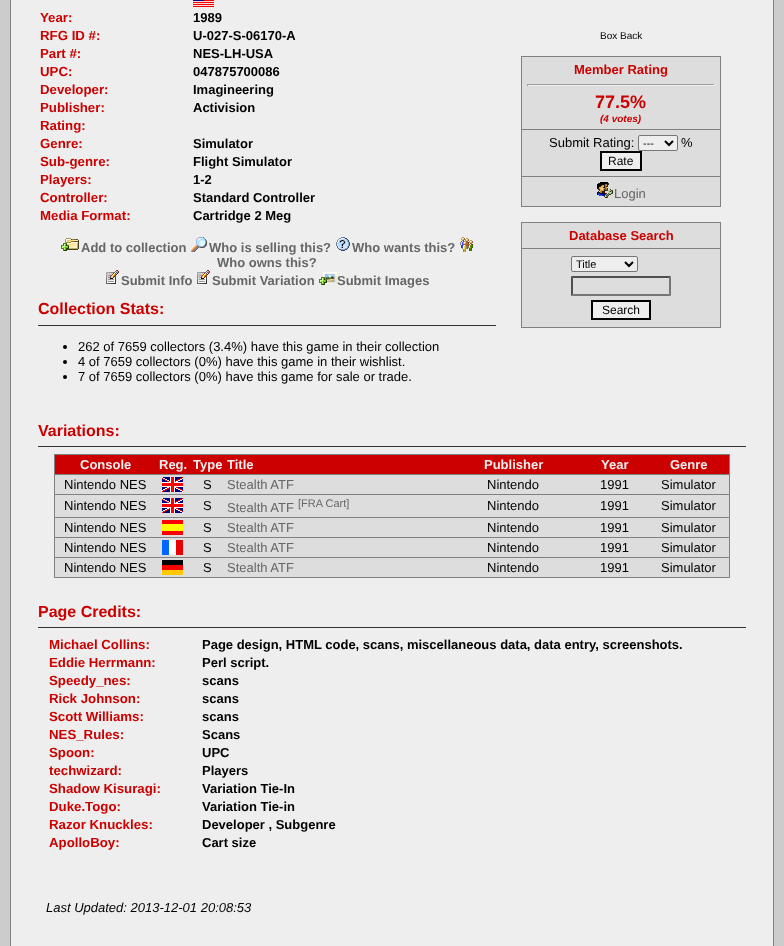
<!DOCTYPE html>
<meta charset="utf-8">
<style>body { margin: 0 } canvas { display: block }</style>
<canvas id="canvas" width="784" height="946"></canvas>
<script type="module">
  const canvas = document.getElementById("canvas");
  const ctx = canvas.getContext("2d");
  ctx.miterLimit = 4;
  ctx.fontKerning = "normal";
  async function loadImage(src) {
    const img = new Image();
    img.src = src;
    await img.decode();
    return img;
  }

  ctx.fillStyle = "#cccccc";
  ctx.fillRect(0, 0, 784, 946);
  ctx.fillStyle = "#808080";
  ctx.fillRect(10, 0, 764, 946);
  ctx.fillStyle = "#eeeeee";
  ctx.fillRect(11, 0, 762, 946);
  ctx.drawImage(await loadImage("img1.png"), 193, 0, 21, 7);
  ctx.font = "bold 13.25px Liberation Sans";
  ctx.fillStyle = "#cc0000";
  ctx.fillText("Year:", 40, 22);
  ctx.font = "bold 13px Liberation Sans";
  ctx.fillStyle = "#000000";
  ctx.fillText("1989", 193, 22);
  ctx.font = "bold 13.25px Liberation Sans";
  ctx.fillStyle = "#cc0000";
  ctx.fillText("RFG ID #:", 40, 40);
  ctx.font = "bold 13px Liberation Sans";
  ctx.fillStyle = "#000000";
  ctx.fillText("U-027-S-06170-A", 193, 40);
  ctx.font = "bold 13.25px Liberation Sans";
  ctx.fillStyle = "#cc0000";
  ctx.fillText("Part #:", 40, 58);
  ctx.font = "bold 13px Liberation Sans";
  ctx.fillStyle = "#000000";
  ctx.fillText("NES-LH-USA", 193, 58);
  ctx.font = "bold 13.25px Liberation Sans";
  ctx.fillStyle = "#cc0000";
  ctx.fillText("UPC:", 40, 76);
  ctx.font = "bold 13px Liberation Sans";
  ctx.fillStyle = "#000000";
  ctx.fillText("047875700086", 193, 76);
  ctx.font = "bold 13.25px Liberation Sans";
  ctx.fillStyle = "#cc0000";
  ctx.fillText("Developer:", 40, 94);
  ctx.font = "bold 13px Liberation Sans";
  ctx.fillStyle = "#000000";
  ctx.fillText("Imagineering", 193, 94);
  ctx.font = "bold 13.25px Liberation Sans";
  ctx.fillStyle = "#cc0000";
  ctx.fillText("Publisher:", 40, 112);
  ctx.font = "bold 13px Liberation Sans";
  ctx.fillStyle = "#000000";
  ctx.fillText("Activision", 193, 112);
  ctx.font = "bold 13.25px Liberation Sans";
  ctx.fillStyle = "#cc0000";
  ctx.fillText("Rating:", 40, 130);
  ctx.fillText("Genre:", 40, 148);
  ctx.font = "bold 13px Liberation Sans";
  ctx.fillStyle = "#000000";
  ctx.fillText("Simulator", 193, 148);
  ctx.font = "bold 13.25px Liberation Sans";
  ctx.fillStyle = "#cc0000";
  ctx.fillText("Sub-genre:", 40, 166);
  ctx.font = "bold 13px Liberation Sans";
  ctx.fillStyle = "#000000";
  ctx.fillText("Flight Simulator", 193, 166);
  ctx.font = "bold 13.25px Liberation Sans";
  ctx.fillStyle = "#cc0000";
  ctx.fillText("Players:", 40, 184);
  ctx.font = "bold 13px Liberation Sans";
  ctx.fillStyle = "#000000";
  ctx.fillText("1-2", 193, 184);
  ctx.font = "bold 13.25px Liberation Sans";
  ctx.fillStyle = "#cc0000";
  ctx.fillText("Controller:", 40, 202);
  ctx.font = "bold 13px Liberation Sans";
  ctx.fillStyle = "#000000";
  ctx.fillText("Standard Controller", 193, 202);
  ctx.font = "bold 13.25px Liberation Sans";
  ctx.fillStyle = "#cc0000";
  ctx.fillText("Media Format:", 40, 220);
  ctx.font = "bold 13px Liberation Sans";
  ctx.fillStyle = "#000000";
  ctx.fillText("Cartridge 2 Meg", 193, 220);
  ctx.font = "10px Liberation Sans";
  ctx.fillText("Box Back", 600, 39);
  ctx.fillStyle = "#808080";
  ctx.fillRect(521, 56, 200, 151);
  ctx.fillStyle = "#dddddd";
  ctx.fillRect(522, 57, 198, 72);
  ctx.font = "bold 13px Liberation Sans";
  ctx.fillStyle = "#cc0000";
  ctx.fillText("Member Rating", 574, 74);
  ctx.fillStyle = "#9f9f9f";
  ctx.fillRect(527, 84, 188, 1);
  ctx.fillStyle = "#eeeeee";
  ctx.fillRect(714, 84, 1, 2);
  ctx.fillRect(527, 85, 188, 1);
  ctx.fillStyle = "#9f9f9f";
  ctx.fillRect(527, 84, 1, 2);
  ctx.font = "bold 18px Liberation Sans";
  ctx.fillStyle = "#cc0000";
  ctx.fillText("77.5%", 595, 108);
  ctx.font = "italic bold 10px Liberation Sans";
  ctx.fillText("(4 votes)", 600, 122);
  ctx.fillStyle = "#dddddd";
  ctx.fillRect(522, 130, 198, 46);
  ctx.font = "13px Liberation Sans";
  ctx.fillStyle = "#000000";
  ctx.fillText("Submit Rating:", 549, 147);
  ctx.fillStyle = "#eeeeee";
  ctx.beginPath();
  ctx.roundRect(638.5, 135.5, 39, 15, 1.5);
  ctx.fill();
  ctx.strokeStyle = "#767676";
  ctx.stroke();
  ctx.beginPath();
  ctx.moveTo(665, 141);
  ctx.lineTo(669, 145);
  ctx.lineTo(673, 141);
  ctx.strokeStyle = "#000000";
  ctx.lineWidth = 2;
  ctx.stroke();
  ctx.font = "11px Liberation Sans";
  ctx.fillStyle = "#000000";
  ctx.fillText("---", 643, 147);
  ctx.font = "13px Liberation Sans";
  ctx.fillText("%", 681, 147);
  ctx.fillStyle = "#eeeeee";
  ctx.beginPath();
  ctx.rect(601, 152, 40, 18);
  ctx.fill();
  ctx.stroke();
  ctx.font = "12px Liberation Sans";
  ctx.fillStyle = "#000000";
  ctx.fillText("Rate", 608, 165);
  ctx.fillStyle = "#dddddd";
  ctx.fillRect(522, 177, 198, 29);
  ctx.drawImage(await loadImage("img2.png"), 597, 182, 16, 16);
  ctx.font = "13px Liberation Sans";
  ctx.fillStyle = "#666666";
  ctx.fillText("Login", 614, 198);
  ctx.fillStyle = "#808080";
  ctx.fillRect(521, 222, 200, 106);
  ctx.fillStyle = "#dddddd";
  ctx.fillRect(522, 223, 198, 25);
  ctx.font = "bold 13px Liberation Sans";
  ctx.fillStyle = "#cc0000";
  ctx.fillText("Database Search", 569, 240);
  ctx.fillStyle = "#dddddd";
  ctx.fillRect(522, 249, 198, 78);
  ctx.fillStyle = "#eeeeee";
  ctx.beginPath();
  ctx.roundRect(571.5, 256.5, 66, 15, 1.5);
  ctx.fill();
  ctx.strokeStyle = "#767676";
  ctx.lineWidth = 1;
  ctx.stroke();
  ctx.beginPath();
  ctx.moveTo(625, 262);
  ctx.lineTo(629, 266);
  ctx.lineTo(633, 262);
  ctx.strokeStyle = "#000000";
  ctx.lineWidth = 2;
  ctx.stroke();
  ctx.font = "11px Liberation Sans";
  ctx.fillStyle = "#000000";
  ctx.fillText("Title", 576, 268);
  ctx.fillStyle = "#4f4f4f";
  ctx.beginPath();
  ctx.moveTo(571, 276);
  ctx.lineTo(671, 276);
  ctx.lineTo(669, 278);
  ctx.lineTo(573, 278);
  ctx.closePath();
  ctx.fill();
  ctx.fillStyle = "#767676";
  ctx.beginPath();
  ctx.moveTo(671, 276);
  ctx.lineTo(671, 296);
  ctx.lineTo(669, 294);
  ctx.lineTo(669, 278);
  ctx.closePath();
  ctx.fill();
  ctx.beginPath();
  ctx.moveTo(671, 296);
  ctx.lineTo(571, 296);
  ctx.lineTo(573, 294);
  ctx.lineTo(669, 294);
  ctx.closePath();
  ctx.fill();
  ctx.fillStyle = "#4f4f4f";
  ctx.beginPath();
  ctx.moveTo(571, 296);
  ctx.lineTo(571, 276);
  ctx.lineTo(573, 278);
  ctx.lineTo(573, 294);
  ctx.closePath();
  ctx.fill();
  ctx.fillStyle = "#eeeeee";
  ctx.beginPath();
  ctx.rect(592, 301, 58, 18);
  ctx.fill();
  ctx.stroke();
  ctx.font = "12px Liberation Sans";
  ctx.fillStyle = "#000000";
  ctx.fillText("Search", 602, 314);
  ctx.drawImage(await loadImage("img3.png"), 61, 238, 18, 13);
  ctx.font = "bold 13px Liberation Sans";
  ctx.fillStyle = "#666666";
  ctx.fillText("Add to collection", 81, 252);
  ctx.drawImage(await loadImage("img4.png"), 191, 237, 16, 15);
  ctx.fillText("Who is selling this?", 209, 252);
  ctx.drawImage(await loadImage("img5.png"), 336, 237, 14, 14);
  ctx.fillText("Who wants this?", 352, 252);
  ctx.drawImage(await loadImage("img6.png"), 460, 237, 13, 15);
  ctx.fillText("Who owns this?", 217, 267);
  ctx.drawImage(await loadImage("img7.png"), 106, 270, 13, 14);
  ctx.fillText("Submit Info", 121, 285);
  ctx.drawImage(await loadImage("img7.png"), 197, 270, 13, 14);
  ctx.fillText("Submit Variation", 212, 285);
  ctx.drawImage(await loadImage("img8.png"), 319, 272, 18, 13);
  ctx.fillText("Submit Images", 337, 285);
  ctx.font = "bold 16px Liberation Sans";
  ctx.fillStyle = "#cc0000";
  ctx.fillText("Collection Stats:", 38, 314);
  ctx.fillStyle = "#333333";
  ctx.fillRect(38, 325, 458, 1);
  ctx.fillStyle = "#000000";
  ctx.beginPath();
  ctx.arc(65, 347, 2, 0, Math.PI * 2);
  ctx.fill();
  ctx.font = "13px Liberation Sans";
  ctx.fillText("262 of 7659 collectors (3.4%) have this game in their collection", 78, 351);
  ctx.beginPath();
  ctx.arc(65, 362, 2, 0, Math.PI * 2);
  ctx.fill();
  ctx.fillText("4 of 7659 collectors (0%) have this game in their wishlist.", 78, 366);
  ctx.beginPath();
  ctx.arc(65, 377, 2, 0, Math.PI * 2);
  ctx.fill();
  ctx.fillText("7 of 7659 collectors (0%) have this game for sale or trade.", 78, 381);
  ctx.font = "bold 16px Liberation Sans";
  ctx.fillStyle = "#cc0000";
  ctx.fillText("Variations:", 38, 436);
  ctx.fillStyle = "#333333";
  ctx.fillRect(38, 446, 708, 1);
  ctx.fillStyle = "#808080";
  ctx.fillRect(54, 454, 676, 124);
  ctx.fillStyle = "#cc0000";
  ctx.fillRect(55, 455, 674, 19);
  ctx.font = "bold 13px Liberation Sans";
  ctx.fillStyle = "#eeeeee";
  ctx.fillText("Console", 80, 469);
  ctx.fillText("Reg.", 159, 469);
  ctx.fillText("Type", 193, 469);
  ctx.fillText("Title", 227, 469);
  ctx.fillText("Publisher", 484, 469);
  ctx.fillText("Year", 601, 469);
  ctx.fillText("Genre", 670, 469);
  ctx.fillStyle = "#dddddd";
  ctx.fillRect(55, 475, 674, 19);
  ctx.font = "13px Liberation Sans";
  ctx.fillStyle = "#000000";
  ctx.fillText("Nintendo NES", 64, 489);
  ctx.drawImage(await loadImage("img9.png"), 162, 477, 21, 15);
  ctx.fillText("S", 203, 489);
  ctx.fillStyle = "#666666";
  ctx.fillText("Stealth ATF", 227, 489);
  ctx.fillStyle = "#000000";
  ctx.fillText("Nintendo", 487, 489);
  ctx.fillText("1991", 600, 489);
  ctx.fillText("Simulator", 661, 489);
  ctx.fillStyle = "#dddddd";
  ctx.fillRect(55, 495, 674, 22);
  ctx.fillStyle = "#000000";
  ctx.fillText("Nintendo NES", 64, 510);
  ctx.drawImage(await loadImage("img9.png"), 162, 498, 21, 15);
  ctx.fillText("S", 203, 510);
  ctx.fillStyle = "#666666";
  ctx.fillText("Stealth ATF", 227, 512);
  ctx.font = "11px Liberation Sans";
  ctx.fillText("[FRA Cart]", 298, 507);
  ctx.font = "13px Liberation Sans";
  ctx.fillStyle = "#000000";
  ctx.fillText("Nintendo", 487, 510);
  ctx.fillText("1991", 600, 510);
  ctx.fillText("Simulator", 661, 510);
  ctx.fillStyle = "#dddddd";
  ctx.fillRect(55, 518, 674, 19);
  ctx.fillStyle = "#000000";
  ctx.fillText("Nintendo NES", 64, 532);
  ctx.drawImage(await loadImage("img10.png"), 162, 520, 21, 15);
  ctx.fillText("S", 203, 532);
  ctx.fillStyle = "#666666";
  ctx.fillText("Stealth ATF", 227, 532);
  ctx.fillStyle = "#000000";
  ctx.fillText("Nintendo", 487, 532);
  ctx.fillText("1991", 600, 532);
  ctx.fillText("Simulator", 661, 532);
  ctx.fillStyle = "#dddddd";
  ctx.fillRect(55, 538, 674, 19);
  ctx.fillStyle = "#000000";
  ctx.fillText("Nintendo NES", 64, 552);
  ctx.drawImage(await loadImage("img11.png"), 162, 540, 21, 15);
  ctx.fillText("S", 203, 552);
  ctx.fillStyle = "#666666";
  ctx.fillText("Stealth ATF", 227, 552);
  ctx.fillStyle = "#000000";
  ctx.fillText("Nintendo", 487, 552);
  ctx.fillText("1991", 600, 552);
  ctx.fillText("Simulator", 661, 552);
  ctx.fillStyle = "#dddddd";
  ctx.fillRect(55, 558, 674, 19);
  ctx.fillStyle = "#000000";
  ctx.fillText("Nintendo NES", 64, 572);
  ctx.drawImage(await loadImage("img12.png"), 162, 560, 21, 15);
  ctx.fillText("S", 203, 572);
  ctx.fillStyle = "#666666";
  ctx.fillText("Stealth ATF", 227, 572);
  ctx.fillStyle = "#000000";
  ctx.fillText("Nintendo", 487, 572);
  ctx.fillText("1991", 600, 572);
  ctx.fillText("Simulator", 661, 572);
  ctx.font = "bold 16px Liberation Sans";
  ctx.fillStyle = "#cc0000";
  ctx.fillText("Page Credits:", 38, 617);
  ctx.fillStyle = "#333333";
  ctx.fillRect(38, 627, 708, 1);
  ctx.font = "bold 13.25px Liberation Sans";
  ctx.fillStyle = "#cc0000";
  ctx.fillText("Michael Collins:", 49, 649);
  ctx.font = "bold 13px Liberation Sans";
  ctx.fillStyle = "#000000";
  ctx.fillText("Page design, HTML code, scans, miscellaneous data, data entry, screenshots.", 202, 649);
  ctx.font = "bold 13.25px Liberation Sans";
  ctx.fillStyle = "#cc0000";
  ctx.fillText("Eddie Herrmann:", 49, 667);
  ctx.font = "bold 13px Liberation Sans";
  ctx.fillStyle = "#000000";
  ctx.fillText("Perl script.", 202, 667);
  ctx.font = "bold 13.25px Liberation Sans";
  ctx.fillStyle = "#cc0000";
  ctx.fillText("Speedy_nes:", 49, 685);
  ctx.font = "bold 13px Liberation Sans";
  ctx.fillStyle = "#000000";
  ctx.fillText("scans", 202, 685);
  ctx.font = "bold 13.25px Liberation Sans";
  ctx.fillStyle = "#cc0000";
  ctx.fillText("Rick Johnson:", 49, 703);
  ctx.font = "bold 13px Liberation Sans";
  ctx.fillStyle = "#000000";
  ctx.fillText("scans", 202, 703);
  ctx.font = "bold 13.25px Liberation Sans";
  ctx.fillStyle = "#cc0000";
  ctx.fillText("Scott Williams:", 49, 721);
  ctx.font = "bold 13px Liberation Sans";
  ctx.fillStyle = "#000000";
  ctx.fillText("scans", 202, 721);
  ctx.font = "bold 13.25px Liberation Sans";
  ctx.fillStyle = "#cc0000";
  ctx.fillText("NES_Rules:", 49, 739);
  ctx.font = "bold 13px Liberation Sans";
  ctx.fillStyle = "#000000";
  ctx.fillText("Scans", 202, 739);
  ctx.font = "bold 13.25px Liberation Sans";
  ctx.fillStyle = "#cc0000";
  ctx.fillText("Spoon:", 49, 757);
  ctx.font = "bold 13px Liberation Sans";
  ctx.fillStyle = "#000000";
  ctx.fillText("UPC", 202, 757);
  ctx.font = "bold 13.25px Liberation Sans";
  ctx.fillStyle = "#cc0000";
  ctx.fillText("techwizard:", 49, 775);
  ctx.font = "bold 13px Liberation Sans";
  ctx.fillStyle = "#000000";
  ctx.fillText("Players", 202, 775);
  ctx.font = "bold 13.25px Liberation Sans";
  ctx.fillStyle = "#cc0000";
  ctx.fillText("Shadow Kisuragi:", 49, 793);
  ctx.font = "bold 13px Liberation Sans";
  ctx.fillStyle = "#000000";
  ctx.fillText("Variation Tie-In", 202, 793);
  ctx.font = "bold 13.25px Liberation Sans";
  ctx.fillStyle = "#cc0000";
  ctx.fillText("Duke.Togo:", 49, 811);
  ctx.font = "bold 13px Liberation Sans";
  ctx.fillStyle = "#000000";
  ctx.fillText("Variation Tie-in", 202, 811);
  ctx.font = "bold 13.25px Liberation Sans";
  ctx.fillStyle = "#cc0000";
  ctx.fillText("Razor Knuckles:", 49, 829);
  ctx.font = "bold 13px Liberation Sans";
  ctx.fillStyle = "#000000";
  ctx.fillText("Developer , Subgenre", 202, 829);
  ctx.font = "bold 13.25px Liberation Sans";
  ctx.fillStyle = "#cc0000";
  ctx.fillText("ApolloBoy:", 49, 847);
  ctx.font = "bold 13px Liberation Sans";
  ctx.fillStyle = "#000000";
  ctx.fillText("Cart size", 202, 847);
  ctx.font = "italic 13px Liberation Sans";
  ctx.fillText("Last Updated: 2013-12-01 20:08:53", 46, 912);
</script>
